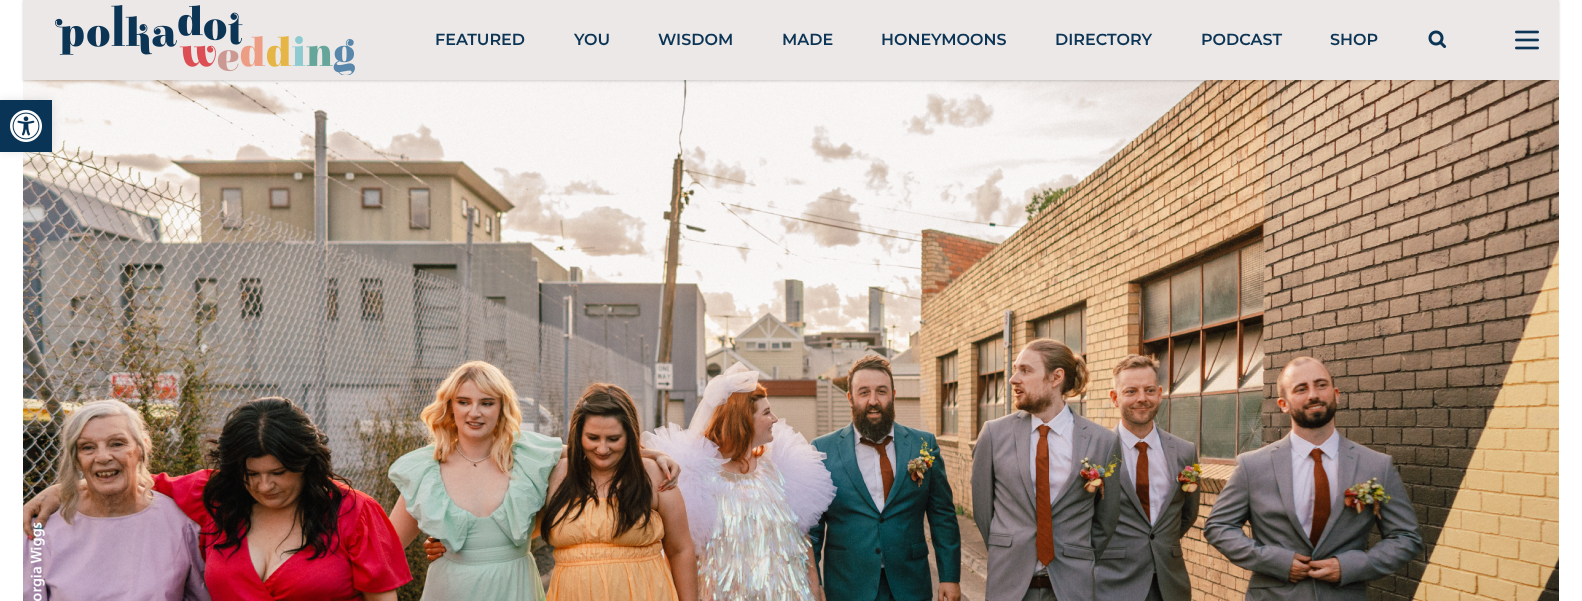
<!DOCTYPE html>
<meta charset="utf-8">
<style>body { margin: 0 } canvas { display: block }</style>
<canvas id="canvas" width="1582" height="601"></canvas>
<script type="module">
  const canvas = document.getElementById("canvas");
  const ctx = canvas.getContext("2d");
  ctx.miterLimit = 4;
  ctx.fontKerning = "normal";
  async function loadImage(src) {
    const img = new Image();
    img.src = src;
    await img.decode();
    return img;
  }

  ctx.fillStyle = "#ffffff";
  ctx.fillRect(0, 0, 1582, 601);
  ctx.drawImage(await loadImage("img4.png"), 23, 80, 1536, 521);
  ctx.fillStyle = "rgba(0, 0, 0, 0.06)";
  ctx.filter = "blur(1px)";
  ctx.beginPath();
  ctx.rect(23, 1, 1536, 80);
  ctx.fill();
  ctx.filter = "none";
  ctx.fillStyle = "rgba(0, 0, 0, 0.1)";
  ctx.filter = "blur(1.5px)";
  ctx.beginPath();
  ctx.rect(23, 1, 1536, 80);
  ctx.fill();
  ctx.filter = "none";
  ctx.fillStyle = "#ebe8e7";
  ctx.fillRect(23, 0, 1536, 80);
  ctx.drawImage(await loadImage("img1.png"), 55, 5, 300, 70);
  ctx.font = "600 16px Montserrat";
  ctx.fillStyle = "#0c3455";
  ctx.fillText("FEATURED", 435, 45);
  ctx.fillText("YOU", 574, 45);
  ctx.fillText("WISDOM", 658, 45);
  ctx.fillText("MADE", 782, 45);
  ctx.fillText("HONEYMOONS", 881, 45);
  ctx.fillText("DIRECTORY", 1055, 45);
  ctx.fillText("PODCAST", 1201, 45);
  ctx.fillText("SHOP", 1330, 45);
  ctx.drawImage(await loadImage("img2.png"), 1428, 30, 19, 18);
  ctx.drawImage(await loadImage("img3.png"), 1515, 30, 24, 20);
  ctx.fillStyle = "rgba(0, 0, 0, 0.1)";
  ctx.filter = "blur(5px)";
  ctx.beginPath();
  ctx.rect(0, 100, 52, 52);
  ctx.fill();
  ctx.filter = "none";
  ctx.fillStyle = "#0a3456";
  ctx.fillRect(0, 100, 52, 52);
  ctx.drawImage(await loadImage("img5.png"), 10, 110, 32, 32);
</script>
